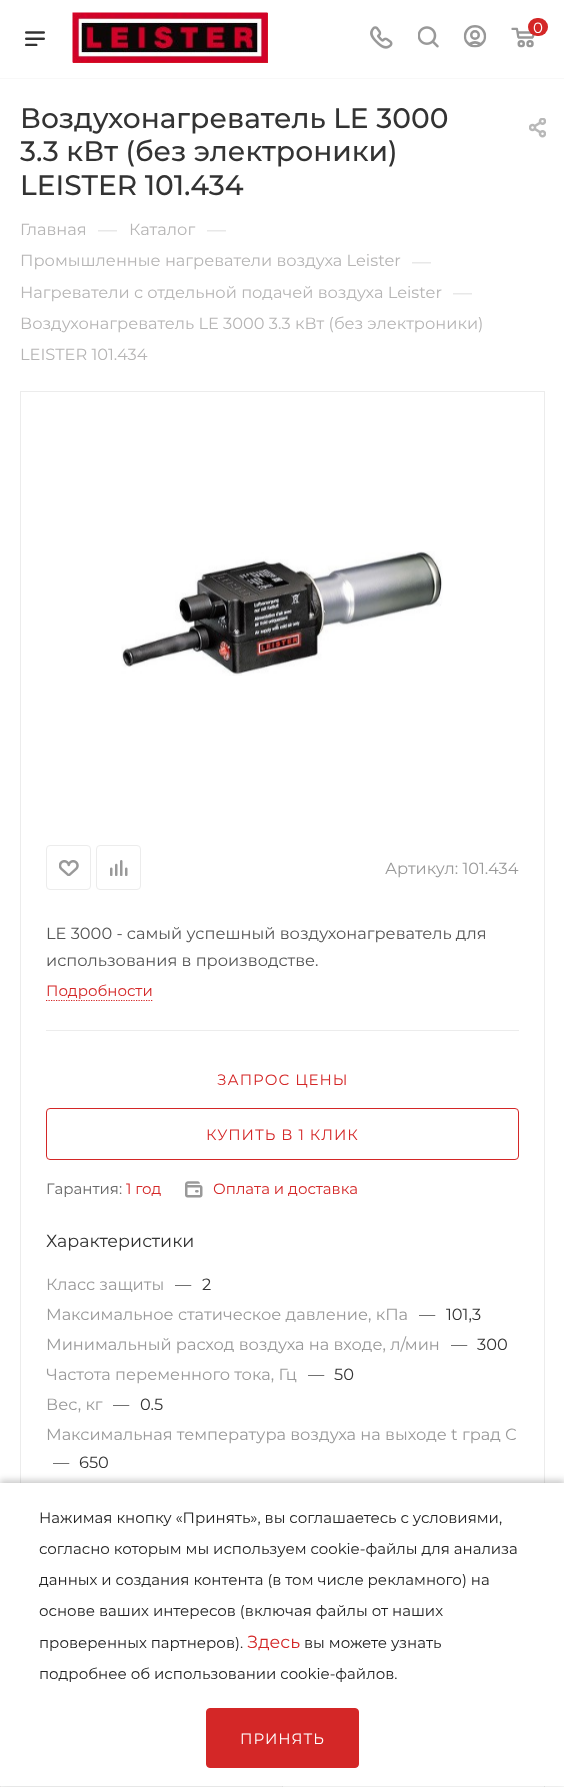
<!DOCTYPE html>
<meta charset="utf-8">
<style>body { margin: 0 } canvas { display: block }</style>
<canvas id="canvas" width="564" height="1787"></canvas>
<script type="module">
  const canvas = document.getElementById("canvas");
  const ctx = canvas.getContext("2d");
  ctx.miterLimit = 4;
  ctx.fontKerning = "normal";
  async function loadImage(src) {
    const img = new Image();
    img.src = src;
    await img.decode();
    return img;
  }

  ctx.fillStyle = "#ffffff";
  ctx.fillRect(0, 0, 564, 1787);
  ctx.fillStyle = "#f8f8f8";
  ctx.fillRect(0, 78, 564, 1);
  ctx.fillStyle = "#d42727";
  ctx.fillRect(73, 13, 195, 50);
  ctx.drawImage(await loadImage("img1.png"), 72, 12, 196, 51);
  ctx.drawImage(await loadImage("img2.png"), 370, 26, 23, 23);
  ctx.drawImage(await loadImage("img3.png"), 418, 26, 21, 22);
  ctx.drawImage(await loadImage("img4.png"), 463, 25, 24, 23);
  ctx.drawImage(await loadImage("img5.png"), 511, 27, 24, 21);
  ctx.beginPath();
  ctx.roundRect(528, 18, 20, 18, 9);
  ctx.fill();
  ctx.font = "15px Montserrat";
  ctx.fillStyle = "#ffffff";
  ctx.fillText("0", 533, 33);
  ctx.drawImage(await loadImage("img6.png"), 25, 31, 20, 15);
  ctx.font = "500 28.1px Montserrat";
  ctx.fillStyle = "#333333";
  ctx.fillText("Воздухонагреватель LE 3000", 20, 128);
  ctx.fillText("3.3 кВт (без электроники)", 20, 161);
  ctx.fillText("LEISTER 101.434", 20, 195);
  ctx.drawImage(await loadImage("img7.png"), 529, 118, 17, 20);
  ctx.font = "16.25px Montserrat";
  ctx.fillStyle = "#b6b5b5";
  ctx.fillText("Главная", 20, 235);
  ctx.font = "19px Montserrat";
  ctx.fillStyle = "#dddddd";
  ctx.fillText("—", 98, 236);
  ctx.font = "16.25px Montserrat";
  ctx.fillStyle = "#b6b5b5";
  ctx.fillText("Каталог", 129, 235);
  ctx.font = "19px Montserrat";
  ctx.fillStyle = "#dddddd";
  ctx.fillText("—", 207, 236);
  ctx.font = "16.25px Montserrat";
  ctx.fillStyle = "#b6b5b5";
  ctx.fillText("Промышленные нагреватели воздуха Leister", 20, 266);
  ctx.font = "19px Montserrat";
  ctx.fillStyle = "#dddddd";
  ctx.fillText("—", 412, 268);
  ctx.font = "16.25px Montserrat";
  ctx.fillStyle = "#b6b5b5";
  ctx.fillText("Нагреватели с отдельной подачей воздуха Leister", 20, 298);
  ctx.font = "19px Montserrat";
  ctx.fillStyle = "#dddddd";
  ctx.fillText("—", 453, 299);
  ctx.font = "16.25px Montserrat";
  ctx.fillStyle = "#b6b5b5";
  ctx.fillText("Воздухонагреватель LE 3000 3.3 кВт (без электроники)", 20, 329);
  ctx.fillText("LEISTER 101.434", 20, 360);
  ctx.strokeStyle = "#ececec";
  ctx.strokeRect(20.5, 391.5, 524, 1247);
  ctx.drawImage(await loadImage("img8.png"), 121, 551, 322, 125);
  ctx.beginPath();
  ctx.roundRect(46.5, 845.5, 44, 44, 3.5);
  ctx.stroke();
  ctx.drawImage(await loadImage("img9.png"), 59, 860, 20, 16);
  ctx.beginPath();
  ctx.roundRect(96.5, 845.5, 44, 44, 3.5);
  ctx.stroke();
  ctx.drawImage(await loadImage("img10.png"), 110, 860, 18, 16);
  ctx.fillStyle = "#999999";
  ctx.fillText("Артикул: 101.434", 385, 874);
  ctx.fillStyle = "#ececec";
  ctx.fillRect(46, 1030, 473, 1);
  ctx.fillStyle = "#555555";
  ctx.fillText("LE 3000 - самый успешный воздухонагреватель для", 46, 939);
  ctx.fillText("использования в производстве.", 46, 966);
  ctx.font = "15px Montserrat";
  ctx.fillStyle = "#d42727";
  ctx.fillText("Подробности", 46, 996);
  ctx.beginPath();
  ctx.moveTo(46, 1000.5);
  ctx.lineTo(152.5, 1000.5);
  ctx.strokeStyle = "#d42727";
  ctx.lineWidth = 1.2;
  ctx.setLineDash([1.25, 1.25]);
  ctx.stroke();
  ctx.letterSpacing = "1px";
  ctx.fillText("ЗАПРОС ЦЕНЫ", 217, 1085);
  ctx.beginPath();
  ctx.roundRect(46.5, 1108.5, 472, 51, 3.5);
  ctx.lineWidth = 1;
  ctx.setLineDash([]);
  ctx.stroke();
  ctx.fillText("КУПИТЬ В 1 КЛИК", 206, 1140);
  ctx.strokeStyle = "#ececec";
  ctx.strokeRect(20.5, 1638.5, 524, 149);
  ctx.fillStyle = "#f8f8f8";
  ctx.fillRect(1, 1786, 281, 1);
  ctx.strokeRect(0.5, 1726.5, 282, 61);
  ctx.letterSpacing = "0px";
  ctx.fillStyle = "#666666";
  ctx.fillText("Гарантия:", 46, 1194);
  ctx.fillStyle = "#d42727";
  ctx.fillText("1 год", 126, 1194);
  ctx.drawImage(await loadImage("img11.png"), 185, 1181, 18, 17);
  ctx.fillText("Оплата и доставка", 213, 1194);
  ctx.font = "17.5px Montserrat";
  ctx.fillStyle = "#333333";
  ctx.fillText("Характеристики", 46, 1247);
  ctx.font = "16.25px Montserrat";
  ctx.fillStyle = "#999999";
  ctx.fillText("Класс защиты", 46, 1290);
  ctx.fillStyle = "#555555";
  ctx.fillText("—", 175, 1290);
  ctx.fillStyle = "#333333";
  ctx.fillText("2", 202, 1290);
  ctx.fillStyle = "#999999";
  ctx.fillText("Максимальное статическое давление, кПа", 46, 1320);
  ctx.fillStyle = "#555555";
  ctx.fillText("—", 419, 1320);
  ctx.fillStyle = "#333333";
  ctx.fillText("101,3", 446, 1320);
  ctx.fillStyle = "#999999";
  ctx.fillText("Минимальный расход воздуха на входе, л/мин", 46, 1350);
  ctx.fillStyle = "#555555";
  ctx.fillText("—", 451, 1350);
  ctx.fillStyle = "#333333";
  ctx.fillText("300", 477, 1350);
  ctx.fillStyle = "#999999";
  ctx.fillText("Частота переменного тока, Гц", 46, 1380);
  ctx.fillStyle = "#555555";
  ctx.fillText("—", 308, 1380);
  ctx.fillStyle = "#333333";
  ctx.fillText("50", 334, 1380);
  ctx.fillStyle = "#999999";
  ctx.fillText("Вес, кг", 46, 1410);
  ctx.fillStyle = "#555555";
  ctx.fillText("—", 113, 1410);
  ctx.fillStyle = "#333333";
  ctx.fillText("0.5", 140, 1410);
  ctx.fillStyle = "#999999";
  ctx.fillText("Максимальная температура воздуха на выходе t град С", 46, 1440);
  ctx.fillStyle = "#555555";
  ctx.fillText("—", 53, 1468);
  ctx.fillStyle = "#333333";
  ctx.fillText("650", 79, 1468);
  ctx.fillStyle = "rgba(0, 0, 0, 0.2)";
  ctx.filter = "blur(3px)";
  ctx.beginPath();
  ctx.rect(0, 1480, 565, 305);
  ctx.fill();
  ctx.filter = "none";
  ctx.fillStyle = "#ffffff";
  ctx.fillRect(0, 1483, 564, 303);
  ctx.font = "15px Montserrat";
  ctx.fillStyle = "#222222";
  ctx.fillText("Нажимая кнопку «Принять», вы соглашаетесь с условиями,", 39, 1523);
  ctx.fillText("согласно которым мы используем cookie-файлы для анализа", 39, 1554);
  ctx.fillText("данных и создания контента (в том числе рекламного) на", 39, 1585);
  ctx.fillText("основе ваших интересов (включая файлы от наших", 39, 1616);
  ctx.fillText("проверенных партнеров).", 39, 1648);
  ctx.font = "17.5px Montserrat";
  ctx.fillStyle = "#d42727";
  ctx.fillText("Здесь", 247, 1648);
  ctx.font = "15px Montserrat";
  ctx.fillStyle = "#222222";
  ctx.fillText("вы можете узнать", 304, 1648);
  ctx.fillText("подробнее об использовании cookie-файлов.", 39, 1679);
  ctx.fillStyle = "#d42727";
  ctx.beginPath();
  ctx.roundRect(206.5, 1708.5, 152, 59, 3.5);
  ctx.fill();
  ctx.strokeStyle = "#d42727";
  ctx.stroke();
  ctx.letterSpacing = "1px";
  ctx.fillStyle = "#ffffff";
  ctx.fillText("ПРИНЯТЬ", 240, 1744);
</script>
